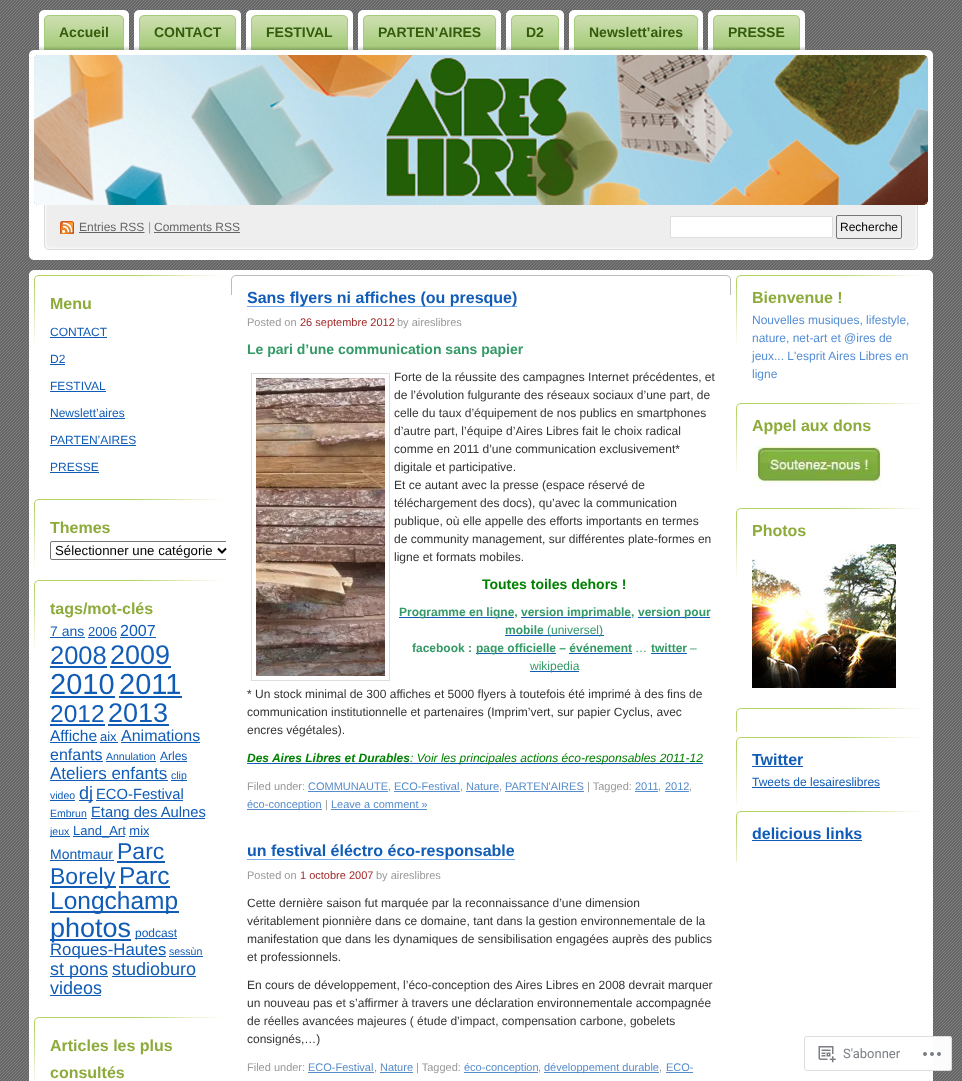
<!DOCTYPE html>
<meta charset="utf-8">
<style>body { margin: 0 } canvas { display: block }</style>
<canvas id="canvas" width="962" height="1081"></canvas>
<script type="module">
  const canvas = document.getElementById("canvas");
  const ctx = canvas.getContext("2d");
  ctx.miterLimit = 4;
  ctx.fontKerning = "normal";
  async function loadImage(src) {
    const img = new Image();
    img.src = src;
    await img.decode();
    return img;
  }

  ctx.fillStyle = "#ffffff";
  ctx.fillRect(0, 0, 962, 1081);
  ctx.drawImage(await loadImage("img1.png"), 0, 0, 962, 1081);
  ctx.drawImage(await loadImage("img2.png"), 49, 10, 80, 40);
  ctx.drawImage(await loadImage("img3.png"), 39, 10, 10, 40);
  ctx.font = "bold 14px Liberation Sans";
  ctx.fillStyle = "#325b0a";
  ctx.fillText("Accueil", 59, 37);
  ctx.drawImage(await loadImage("img4.png"), 144, 10, 97, 40);
  ctx.drawImage(await loadImage("img3.png"), 134, 10, 10, 40);
  ctx.fillText("CONTACT", 154, 37);
  ctx.drawImage(await loadImage("img5.png"), 256, 10, 97, 40);
  ctx.drawImage(await loadImage("img3.png"), 246, 10, 10, 40);
  ctx.fillText("FESTIVAL", 266, 37);
  ctx.drawImage(await loadImage("img6.png"), 368, 10, 133, 40);
  ctx.drawImage(await loadImage("img3.png"), 358, 10, 10, 40);
  ctx.fillText("PARTEN’AIRES", 378, 37);
  ctx.drawImage(await loadImage("img7.png"), 516, 10, 48, 40);
  ctx.drawImage(await loadImage("img3.png"), 506, 10, 10, 40);
  ctx.fillText("D2", 526, 37);
  ctx.drawImage(await loadImage("img8.png"), 579, 10, 124, 40);
  ctx.drawImage(await loadImage("img3.png"), 569, 10, 10, 40);
  ctx.fillText("Newslett’aires", 589, 37);
  ctx.drawImage(await loadImage("img9.png"), 718, 10, 87, 40);
  ctx.drawImage(await loadImage("img3.png"), 708, 10, 10, 40);
  ctx.fillText("PRESSE", 728, 37);
  ctx.drawImage(await loadImage("img11.png"), 34, 55, 894, 150);
  ctx.drawImage(await loadImage("img10.png"), 29, 50, 904, 210);
  ctx.drawImage(await loadImage("img12.png"), 60, 221, 14, 13);
  ctx.font = "12px Liberation Sans";
  ctx.fillStyle = "#666666";
  ctx.fillText("Entries RSS", 79, 231);
  ctx.fillRect(79, 232, 41, 1);
  ctx.beginPath();
  ctx.moveTo(119.5, 232.5);
  ctx.lineTo(144.5, 232.5);
  ctx.strokeStyle = "#666666";
  ctx.setLineDash([1, 1]);
  ctx.stroke();
  ctx.fillRect(120, 232, 24, 1);
  ctx.fillStyle = "#999999";
  ctx.fillText("|", 148, 231);
  ctx.fillStyle = "#666666";
  ctx.fillText("Comments RSS", 154, 231);
  ctx.fillRect(154, 232, 86, 1);
  ctx.fillStyle = "#ffffff";
  ctx.beginPath();
  ctx.rect(670.5, 216.5, 162, 21);
  ctx.fill();
  ctx.strokeStyle = "#dddddd";
  ctx.setLineDash([]);
  ctx.stroke();
  ctx.beginPath();
  ctx.roundRect(836.5, 215.5, 65, 23, 1.5);
  ctx.strokeStyle = "#767676";
  ctx.stroke();
  ctx.fillStyle = "#000000";
  ctx.fillText("Recherche", 840, 231);
  ctx.fillStyle = "#ffffff";
  ctx.fillRect(29, 275, 904, 806);
  ctx.drawImage(await loadImage("img13.png"), 29, 270, 904, 5);
  ctx.drawImage(await loadImage("img14.png"), 34, 275, 188, 72);
  ctx.font = "bold 16px Liberation Sans";
  ctx.fillStyle = "#8dab3b";
  ctx.fillText("Menu", 50, 309);
  ctx.font = "12px Liberation Sans";
  ctx.fillStyle = "#105cb6";
  ctx.fillText("CONTACT", 50, 336);
  ctx.fillRect(50, 337, 57, 1);
  ctx.fillText("D2", 50, 363);
  ctx.fillRect(50, 364, 15, 1);
  ctx.fillText("FESTIVAL", 50, 390);
  ctx.fillRect(50, 391, 56, 1);
  ctx.fillText("Newslett’aires", 50, 417);
  ctx.fillRect(50, 418, 75, 1);
  ctx.fillText("PARTEN’AIRES", 50, 444);
  ctx.fillRect(50, 445, 86, 1);
  ctx.fillText("PRESSE", 50, 471);
  ctx.fillRect(50, 472, 49, 1);
  ctx.drawImage(await loadImage("img14.png"), 34, 499, 188, 72);
  ctx.font = "bold 16px Liberation Sans";
  ctx.fillStyle = "#8dab3b";
  ctx.fillText("Themes", 50, 533);
  ctx.save();
  ctx.beginPath();
  ctx.rect(34, 270, 192, 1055);
  ctx.clip();
  ctx.beginPath();
  ctx.roundRect(50.5, 541.5, 180, 18, 1.5);
  ctx.stroke();
  ctx.restore();
  ctx.beginPath();
  ctx.moveTo(218, 548.5);
  ctx.lineTo(222, 552.5);
  ctx.lineTo(226, 548.5);
  ctx.strokeStyle = "#000000";
  ctx.lineWidth = 2;
  ctx.stroke();
  ctx.font = "13.25px Liberation Sans";
  ctx.fillStyle = "#000000";
  ctx.fillText("Sélectionner une catégorie", 55, 555);
  ctx.drawImage(await loadImage("img14.png"), 34, 580, 188, 72);
  ctx.font = "bold 16px Liberation Sans";
  ctx.fillStyle = "#8dab3b";
  ctx.fillText("tags/mot-clés", 50, 614);
  ctx.font = "14px Liberation Sans";
  ctx.fillStyle = "#105cb6";
  ctx.fillText("7 ans", 50, 636);
  ctx.fillRect(50, 637, 35, 1);
  ctx.font = "13px Liberation Sans";
  ctx.fillText("2006", 88, 636);
  ctx.fillRect(88, 637, 29, 1);
  ctx.font = "16px Liberation Sans";
  ctx.fillText("2007", 120, 636);
  ctx.fillRect(120, 637, 36, 1);
  ctx.font = "25.5px Liberation Sans";
  ctx.fillText("2008", 50, 664);
  ctx.fillRect(50, 666, 57, 2);
  ctx.font = "27px Liberation Sans";
  ctx.fillText("2009", 110, 664);
  ctx.fillRect(110, 666, 61, 2);
  ctx.font = "29px Liberation Sans";
  ctx.fillText("2010", 50, 694);
  ctx.fillRect(50, 696, 65, 2);
  ctx.fillText("2011", 119, 694);
  ctx.fillRect(119, 696, 63, 2);
  ctx.font = "24.5px Liberation Sans";
  ctx.fillText("2012", 50, 722);
  ctx.fillRect(50, 724, 55, 2);
  ctx.font = "27px Liberation Sans";
  ctx.fillText("2013", 108, 722);
  ctx.fillRect(108, 724, 61, 2);
  ctx.font = "15.5px Liberation Sans";
  ctx.fillText("Affiche", 50, 741);
  ctx.fillRect(50, 742, 47, 1);
  ctx.font = "13px Liberation Sans";
  ctx.fillText("aix", 100, 741);
  ctx.fillRect(100, 742, 18, 1);
  ctx.font = "16px Liberation Sans";
  ctx.fillText("Animations", 121, 741);
  ctx.fillRect(121, 742, 79, 1);
  ctx.fillText("enfants", 50, 760);
  ctx.fillRect(50, 761, 53, 1);
  ctx.font = "10.5px Liberation Sans";
  ctx.fillText("Annulation", 106, 760);
  ctx.fillRect(106, 761, 50, 1);
  ctx.font = "12px Liberation Sans";
  ctx.fillText("Arles", 160, 760);
  ctx.fillRect(160, 761, 27, 1);
  ctx.font = "17px Liberation Sans";
  ctx.fillText("Ateliers enfants", 50, 779);
  ctx.fillRect(50, 780, 118, 1);
  ctx.fillRect(171, 780, 16, 1);
  ctx.font = "10.5px Liberation Sans";
  ctx.fillText("clip", 171, 779);
  ctx.fillText("video", 50, 799);
  ctx.fillRect(50, 800, 25, 1);
  ctx.fillRect(79, 800, 14, 1);
  ctx.font = "18px Liberation Sans";
  ctx.fillText("dj", 79, 799);
  ctx.font = "14.75px Liberation Sans";
  ctx.fillText("ECO-Festival", 96, 799);
  ctx.fillRect(96, 800, 87, 1);
  ctx.font = "10.5px Liberation Sans";
  ctx.fillText("Embrun", 50, 817);
  ctx.fillRect(50, 818, 37, 1);
  ctx.fillRect(91, 818, 114, 1);
  ctx.font = "14.75px Liberation Sans";
  ctx.fillText("Etang des Aulnes", 91, 817);
  ctx.fillRect(50, 836, 20, 1);
  ctx.font = "10.5px Liberation Sans";
  ctx.fillText("jeux", 50, 835);
  ctx.fillRect(73, 836, 52, 1);
  ctx.font = "13px Liberation Sans";
  ctx.fillText("Land_Art mix", 73, 835);
  ctx.fillRect(129, 836, 20, 1);
  ctx.font = "14px Liberation Sans";
  ctx.fillText("Montmaur", 50, 859);
  ctx.fillRect(50, 860, 64, 1);
  ctx.font = "23px Liberation Sans";
  ctx.fillText("Parc", 117, 859);
  ctx.fillRect(117, 861, 48, 2);
  ctx.fillRect(50, 886, 66, 2);
  ctx.fillText("Borely", 50, 884);
  ctx.font = "24.5px Liberation Sans";
  ctx.fillText("Parc", 119, 884);
  ctx.fillRect(119, 886, 51, 2);
  ctx.fillRect(50, 911, 129, 2);
  ctx.fillText("Longchamp", 50, 909);
  ctx.fillRect(50, 939, 81, 2);
  ctx.font = "27px Liberation Sans";
  ctx.fillText("photos", 50, 937);
  ctx.fillRect(135, 938, 42, 1);
  ctx.font = "12px Liberation Sans";
  ctx.fillText("podcast", 135, 937);
  ctx.fillRect(50, 956, 116, 1);
  ctx.font = "16.75px Liberation Sans";
  ctx.fillText("Roques-Hautes", 50, 955);
  ctx.font = "10.5px Liberation Sans";
  ctx.fillText("sessùn", 169, 955);
  ctx.fillRect(169, 956, 34, 1);
  ctx.fillRect(50, 976, 58, 1);
  ctx.font = "18px Liberation Sans";
  ctx.fillText("st pons", 50, 975);
  ctx.fillText("studioburo", 112, 975);
  ctx.fillRect(112, 976, 84, 1);
  ctx.fillText("videos", 50, 994);
  ctx.fillRect(50, 995, 51, 1);
  ctx.drawImage(await loadImage("img15.png"), 34, 1017, 188, 64);
  ctx.font = "bold 16px Liberation Sans";
  ctx.fillStyle = "#8dab3b";
  ctx.fillText("Articles les plus", 50, 1051);
  ctx.fillText("consultés", 50, 1078);
  ctx.drawImage(await loadImage("img16.png"), 231, 275, 500, 20);
  ctx.fillStyle = "#75abea";
  ctx.fillRect(247, 306, 270, 1);
  ctx.fillStyle = "#105cb6";
  ctx.fillText("Sans flyers ni affiches (ou presque)", 247, 303);
  ctx.font = "11px Liberation Sans";
  ctx.fillStyle = "#999999";
  ctx.fillText("Posted on", 247, 326);
  ctx.fillStyle = "#a12a2a";
  ctx.fillText("26 septembre 2012", 300, 326);
  ctx.fillStyle = "#999999";
  ctx.fillText("by aireslibres", 397, 326);
  ctx.font = "bold 14px Liberation Sans";
  ctx.fillStyle = "#339966";
  ctx.fillText("Le pari d’une communication sans papier", 247, 354);
  ctx.strokeStyle = "#dddddd";
  ctx.lineWidth = 1;
  ctx.strokeRect(251.5, 373.5, 138, 307);
  ctx.drawImage(await loadImage("img17.png"), 256, 378, 129, 298);
  ctx.font = "12px Liberation Sans";
  ctx.fillStyle = "#333333";
  ctx.fillText("Forte de la réussite des campagnes Internet précédentes, et", 394, 381);
  ctx.fillText("de l’évolution fulgurante des réseaux sociaux d’une part, de", 394, 399);
  ctx.fillText("celle du taux d’équipement de nos publics en smartphones", 394, 417);
  ctx.fillText("d’autre part, l’équipe d’Aires Libres fait le choix radical", 394, 435);
  ctx.fillText("comme en 2011 d’une communication exclusivement*", 394, 453);
  ctx.fillText("digitale et participative.", 394, 471);
  ctx.fillText("Et ce autant avec la presse (espace réservé de", 394, 489);
  ctx.fillText("téléchargement des docs), qu’avec la communication", 394, 507);
  ctx.fillText("publique, où elle appelle des efforts importants en termes", 394, 525);
  ctx.fillText("de community management, sur différentes plate-formes en", 394, 543);
  ctx.fillText("ligne et formats mobiles.", 394, 561);
  ctx.font = "bold 14px Liberation Sans";
  ctx.fillStyle = "#008000";
  ctx.fillText("Toutes toiles dehors !", 482, 589);
  ctx.fillStyle = "#105cb6";
  ctx.fillRect(399, 617, 115, 1);
  ctx.font = "bold 12px Liberation Sans";
  ctx.fillStyle = "#339966";
  ctx.fillText("Programme en ligne,", 399, 616);
  ctx.fillStyle = "#105cb6";
  ctx.fillRect(521, 617, 110, 1);
  ctx.fillStyle = "#339966";
  ctx.fillText("version imprimable,", 521, 616);
  ctx.fillStyle = "#105cb6";
  ctx.fillRect(638, 617, 72, 1);
  ctx.fillStyle = "#339966";
  ctx.fillText("version pour", 638, 616);
  ctx.fillText("mobile", 505, 634);
  ctx.fillStyle = "#105cb6";
  ctx.fillRect(505, 635, 99, 1);
  ctx.font = "12px Liberation Sans";
  ctx.fillStyle = "#339966";
  ctx.fillText("(universel)", 547, 634);
  ctx.font = "bold 12px Liberation Sans";
  ctx.fillText("facebook :", 412, 652);
  ctx.fillStyle = "#105cb6";
  ctx.fillRect(476, 653, 80, 1);
  ctx.fillStyle = "#339966";
  ctx.fillText("page officielle – événement", 476, 652);
  ctx.fillStyle = "#105cb6";
  ctx.fillRect(569, 653, 63, 1);
  ctx.fillStyle = "#339966";
  ctx.fillText("twitter", 651, 652);
  ctx.font = "12px Liberation Sans";
  ctx.fillText("–", 690, 652);
  ctx.fillText("…", 635, 652);
  ctx.fillStyle = "#105cb6";
  ctx.fillRect(651, 653, 36, 1);
  ctx.fillRect(530, 671, 49, 1);
  ctx.fillStyle = "#339966";
  ctx.fillText("wikipedia", 530, 670);
  ctx.fillStyle = "#333333";
  ctx.fillText("* Un stock minimal de 300 affiches et 5000 flyers à toutefois été imprimé à des fins de", 247, 698);
  ctx.fillText("communication institutionnelle et partenaires (Imprim’vert, sur papier Cyclus, avec", 247, 716);
  ctx.fillText("encres végétales).", 247, 734);
  ctx.font = "italic bold 12px Liberation Sans";
  ctx.fillStyle = "#008000";
  ctx.fillText("Des Aires Libres et Durables", 247, 762);
  ctx.fillStyle = "#105cb6";
  ctx.fillRect(247, 763, 456, 1);
  ctx.font = "italic 12px Liberation Sans";
  ctx.fillStyle = "#008000";
  ctx.fillText(": Voir les principales actions éco-responsables 2011-12", 410, 762);
  ctx.font = "11px Liberation Sans";
  ctx.fillStyle = "#999999";
  ctx.fillText("Filed under:", 247, 790);
  ctx.fillStyle = "#578cca";
  ctx.fillText("COMMUNAUTE", 308, 790);
  ctx.fillRect(308, 791, 80, 1);
  ctx.fillStyle = "#999999";
  ctx.fillText(",", 388, 790);
  ctx.fillStyle = "#578cca";
  ctx.fillText("ECO-Festival", 394, 790);
  ctx.fillRect(394, 791, 66, 1);
  ctx.fillStyle = "#999999";
  ctx.fillText(",", 460, 790);
  ctx.fillStyle = "#578cca";
  ctx.fillText("Nature", 466, 790);
  ctx.fillRect(466, 791, 33, 1);
  ctx.fillStyle = "#999999";
  ctx.fillText(",", 499, 790);
  ctx.fillStyle = "#578cca";
  ctx.fillText("PARTEN'AIRES", 505, 790);
  ctx.fillRect(505, 791, 79, 1);
  ctx.fillStyle = "#999999";
  ctx.fillText("| Tagged:", 587, 790);
  ctx.fillStyle = "#578cca";
  ctx.fillText("2011", 635, 790);
  ctx.fillRect(635, 791, 23, 1);
  ctx.fillStyle = "#999999";
  ctx.fillText(",", 658, 790);
  ctx.fillStyle = "#578cca";
  ctx.fillText("2012", 665, 790);
  ctx.fillRect(665, 791, 24, 1);
  ctx.fillStyle = "#999999";
  ctx.fillText(",", 689, 790);
  ctx.fillStyle = "#578cca";
  ctx.fillRect(247, 809, 75, 1);
  ctx.fillText("éco-conception", 247, 808);
  ctx.fillStyle = "#999999";
  ctx.fillText("|", 325, 808);
  ctx.fillStyle = "#578cca";
  ctx.fillText("Leave a comment »", 331, 808);
  ctx.fillRect(331, 809, 96, 1);
  ctx.fillStyle = "#75abea";
  ctx.fillRect(247, 859, 268, 1);
  ctx.font = "bold 16px Liberation Sans";
  ctx.fillStyle = "#105cb6";
  ctx.fillText("un festival éléctro éco-responsable", 247, 856);
  ctx.font = "11px Liberation Sans";
  ctx.fillStyle = "#999999";
  ctx.fillText("Posted on", 247, 879);
  ctx.fillStyle = "#a12a2a";
  ctx.fillText("1 octobre 2007", 300, 879);
  ctx.fillStyle = "#999999";
  ctx.fillText("by aireslibres", 376, 879);
  ctx.font = "12px Liberation Sans";
  ctx.fillStyle = "#333333";
  ctx.fillText("Cette dernière saison fut marquée par la reconnaissance d’une dimension", 247, 907);
  ctx.fillText("véritablement pionnière dans ce domaine, tant dans la gestion environnementale de la", 247, 925);
  ctx.fillText("manifestation que dans les dynamiques de sensibilisation engagées auprès des publics", 247, 943);
  ctx.fillText("et professionnels.", 247, 961);
  ctx.fillText("En cours de développement, l’éco-conception des Aires Libres en 2008 devrait marquer", 247, 989);
  ctx.fillText("un nouveau pas et s’affirmer à travers une déclaration environnementale accompagnée", 247, 1007);
  ctx.fillText("de réelles avancées majeures ( étude d’impact, compensation carbone, gobelets", 247, 1025);
  ctx.fillText("consignés,…)", 247, 1043);
  ctx.font = "11px Liberation Sans";
  ctx.fillStyle = "#999999";
  ctx.fillText("Filed under:", 247, 1071);
  ctx.fillStyle = "#578cca";
  ctx.fillText("ECO-Festival", 308, 1071);
  ctx.fillRect(308, 1072, 66, 1);
  ctx.fillStyle = "#999999";
  ctx.fillText(",", 374, 1071);
  ctx.fillStyle = "#578cca";
  ctx.fillText("Nature", 380, 1071);
  ctx.fillRect(380, 1072, 33, 1);
  ctx.fillStyle = "#999999";
  ctx.fillText("| Tagged:", 416, 1071);
  ctx.fillStyle = "#578cca";
  ctx.fillRect(464, 1072, 74, 1);
  ctx.fillText("éco-conception", 464, 1071);
  ctx.fillStyle = "#999999";
  ctx.fillText(",", 538, 1071);
  ctx.fillStyle = "#578cca";
  ctx.fillRect(544, 1072, 115, 1);
  ctx.fillText("développement durable", 544, 1071);
  ctx.fillStyle = "#999999";
  ctx.fillText(",", 659, 1071);
  ctx.fillStyle = "#578cca";
  ctx.fillText("ECO-", 666, 1071);
  ctx.fillRect(666, 1072, 27, 1);
  ctx.drawImage(await loadImage("img14.png"), 736, 275, 188, 72);
  ctx.font = "bold 16px Liberation Sans";
  ctx.fillStyle = "#8dab3b";
  ctx.fillText("Bienvenue !", 752, 303);
  ctx.font = "12px Liberation Sans";
  ctx.fillStyle = "#548dd4";
  ctx.fillText("Nouvelles musiques, lifestyle,", 752, 324);
  ctx.fillText("nature, net-art et @ires de", 752, 342);
  ctx.fillText("jeux... L'esprit Aires Libres en", 752, 360);
  ctx.fillText("ligne", 752, 378);
  ctx.drawImage(await loadImage("img14.png"), 736, 403, 188, 72);
  ctx.font = "bold 16px Liberation Sans";
  ctx.fillStyle = "#8dab3b";
  ctx.fillText("Appel aux dons", 752, 431);
  ctx.drawImage(await loadImage("img18.png"), 753, 446, 130, 41);
  ctx.drawImage(await loadImage("img14.png"), 736, 508, 188, 72);
  ctx.fillText("Photos", 752, 536);
  ctx.drawImage(await loadImage("img19.png"), 752, 544, 144, 144);
  ctx.drawImage(await loadImage("img20.png"), 736, 708, 188, 24);
  ctx.drawImage(await loadImage("img21.png"), 736, 737, 188, 69);
  ctx.fillStyle = "#105cb6";
  ctx.fillText("Twitter", 752, 765);
  ctx.fillRect(752, 766, 51, 1);
  ctx.font = "12px Liberation Sans";
  ctx.fillText("Tweets de lesaireslibres", 752, 786);
  ctx.fillRect(752, 787, 128, 1);
  ctx.drawImage(await loadImage("img22.png"), 736, 811, 188, 51);
  ctx.font = "bold 16px Liberation Sans";
  ctx.fillText("delicious links", 752, 839);
  ctx.fillRect(752, 840, 110, 1);
  ctx.fillStyle = "rgba(255, 255, 255, 0.98)";
  ctx.beginPath();
  ctx.roundRect(804, 1036, 148, 35, 3);
  ctx.fill();
  ctx.beginPath();
  ctx.roundRect(804.5, 1036.5, 147, 34, 2.5);
  ctx.strokeStyle = "rgba(220, 220, 222, 0.98)";
  ctx.stroke();
  ctx.drawImage(await loadImage("img23.png"), 818, 1046, 18, 17);
  ctx.font = "13px Roboto";
  ctx.fillStyle = "#7b7f85";
  ctx.fillText("S'abonner", 843, 1058);
  ctx.drawImage(await loadImage("img24.png"), 923, 1052, 18, 4);
</script>
